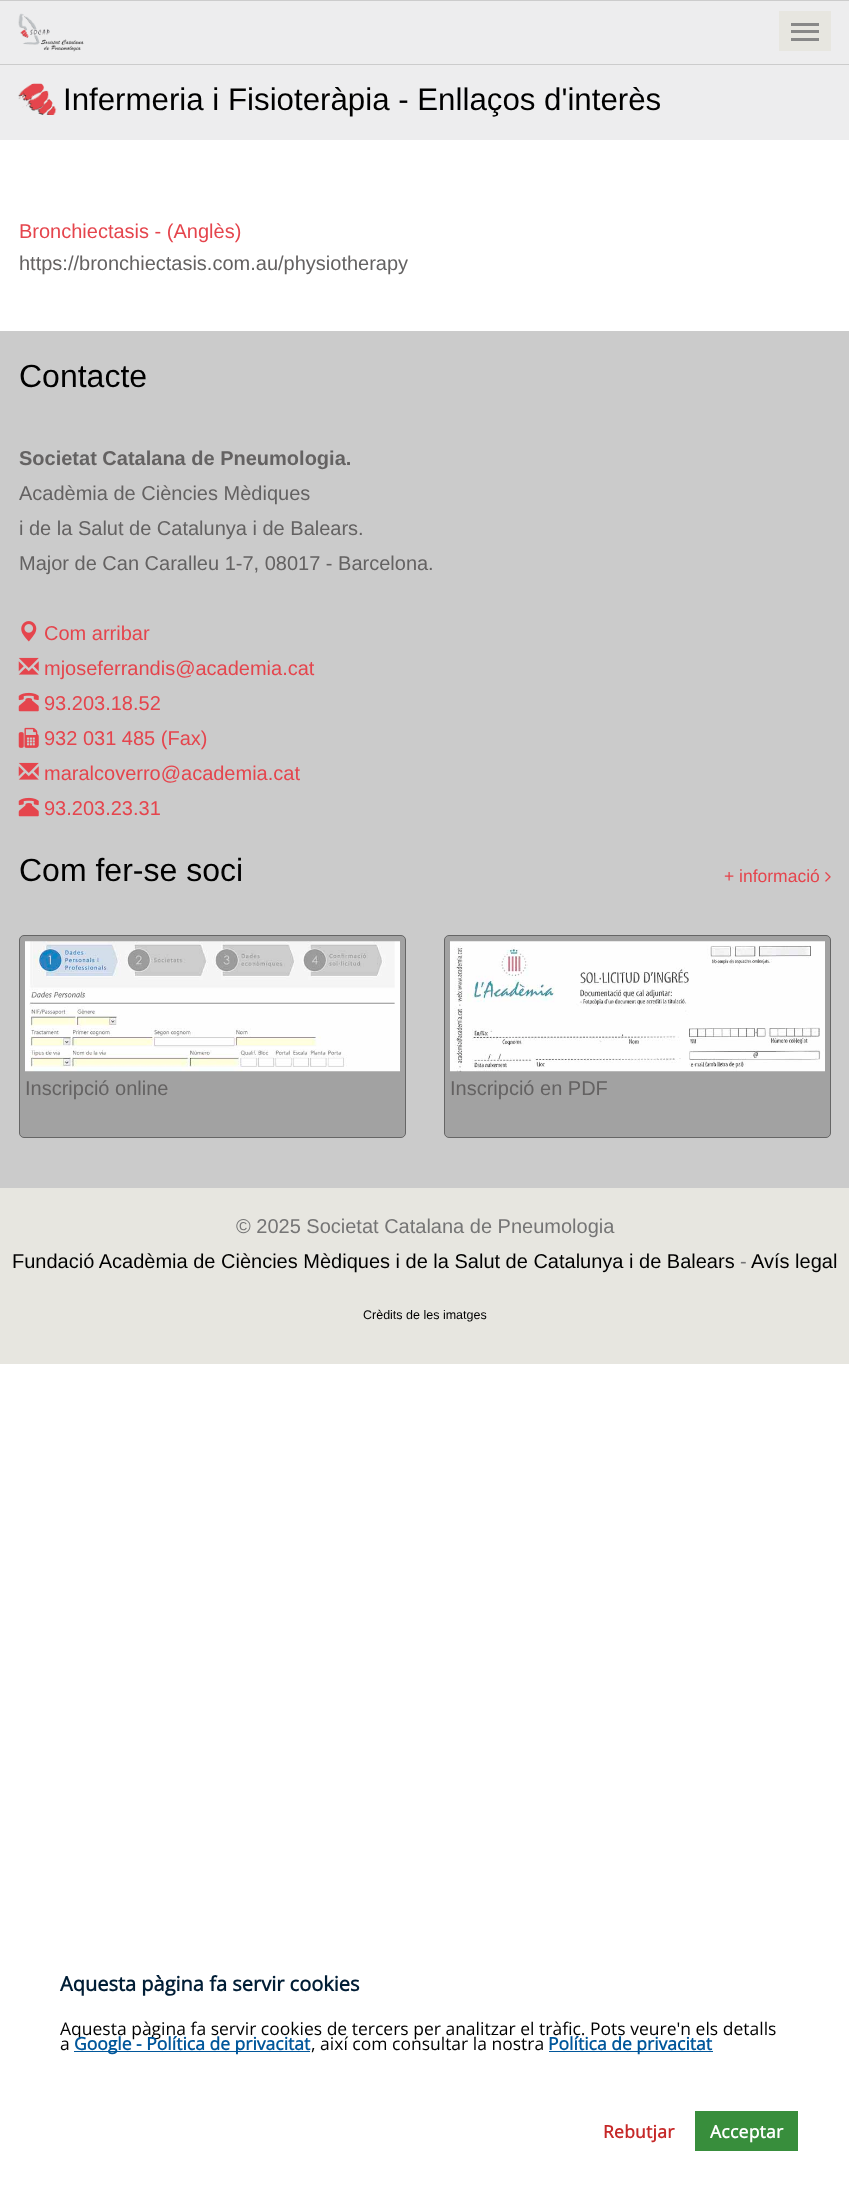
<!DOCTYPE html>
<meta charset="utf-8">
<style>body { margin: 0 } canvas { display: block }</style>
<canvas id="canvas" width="849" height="2201"></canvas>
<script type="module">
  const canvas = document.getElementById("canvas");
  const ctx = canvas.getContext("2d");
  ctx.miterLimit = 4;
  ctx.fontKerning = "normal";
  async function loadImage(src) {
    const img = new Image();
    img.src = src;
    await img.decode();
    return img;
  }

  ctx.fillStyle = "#ffffff";
  ctx.fillRect(0, 0, 849, 2201);
  ctx.fillStyle = "#ededee";
  ctx.fillRect(0, 1, 849, 63);
  ctx.fillStyle = "#cccccc";
  ctx.fillRect(0, 0, 849, 1);
  ctx.fillRect(0, 64, 849, 1);
  ctx.drawImage(await loadImage("img1.png"), 18, 13, 66, 39);
  ctx.fillStyle = "#e7e6e0";
  ctx.fillRect(779, 11, 52, 40);
  ctx.fillStyle = "#888888";
  ctx.fillRect(791, 23, 28, 3);
  ctx.fillRect(791, 30, 28, 3);
  ctx.fillRect(791, 38, 28, 3);
  ctx.fillStyle = "#ededee";
  ctx.fillRect(0, 65, 849, 75);
  ctx.drawImage(await loadImage("img2.png"), 18, 83, 39, 32);
  ctx.font = "31.25px Liberation Sans";
  ctx.fillStyle = "#000000";
  ctx.fillText("Infermeria i Fisioteràpia - Enllaços d'interès", 63, 110);
  ctx.font = "20px Liberation Sans";
  ctx.fillStyle = "#e5454d";
  ctx.fillText("Bronchiectasis - (Anglès)", 19, 238);
  ctx.fillStyle = "#646262";
  ctx.fillText("https://bronchiectasis.com.au/physiotherapy", 19, 270);
  ctx.fillStyle = "rgba(0, 0, 0, 0.3)";
  ctx.filter = "blur(0.5px)";
  ctx.beginPath();
  ctx.rect(0, 331, 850, 857);
  ctx.fill();
  ctx.filter = "none";
  ctx.fillStyle = "#cbcbcb";
  ctx.fillRect(0, 331, 849, 857);
  ctx.font = "32px Liberation Sans";
  ctx.fillStyle = "#000000";
  ctx.fillText("Contacte", 19, 387);
  ctx.font = "bold 20px Liberation Sans";
  ctx.fillStyle = "#646262";
  ctx.fillText("Societat Catalana de Pneumologia.", 19, 465);
  ctx.font = "20px Liberation Sans";
  ctx.fillText("Acadèmia de Ciències Mèdiques", 19, 500);
  ctx.fillText("i de la Salut de Catalunya i de Balears.", 19, 535);
  ctx.fillText("Major de Can Caralleu 1-7, 08017 - Barcelona.", 19, 570);
  ctx.drawImage(await loadImage("img3.png"), 21, 621, 16, 21);
  ctx.fillStyle = "#e5454d";
  ctx.fillText("Com arribar", 44, 640);
  ctx.drawImage(await loadImage("img4.png"), 18, 657, 21, 18);
  ctx.fillText("mjoseferrandis@academia.cat", 44, 675);
  ctx.drawImage(await loadImage("img5.png"), 18, 692, 21, 20);
  ctx.fillText("93.203.18.52", 44, 710);
  ctx.drawImage(await loadImage("img6.png"), 18, 727, 21, 21);
  ctx.fillText("932 031 485 (Fax)", 44, 745);
  ctx.drawImage(await loadImage("img4.png"), 18, 762, 21, 18);
  ctx.fillText("maralcoverro@academia.cat", 44, 780);
  ctx.drawImage(await loadImage("img5.png"), 18, 797, 21, 20);
  ctx.fillText("93.203.23.31", 44, 815);
  ctx.font = "32px Liberation Sans";
  ctx.fillStyle = "#000000";
  ctx.fillText("Com fer-se soci", 19, 881);
  ctx.font = "17.5px Liberation Sans";
  ctx.fillStyle = "#e5454d";
  ctx.fillText("+ informació", 724, 882);
  ctx.drawImage(await loadImage("img7.png"), 825, 872, 6, 10);
  ctx.fillStyle = "#a2a2a2";
  ctx.beginPath();
  ctx.roundRect(19.5, 935.5, 386, 202, 4.5);
  ctx.fill();
  ctx.strokeStyle = "#666666";
  ctx.stroke();
  ctx.drawImage(await loadImage("img8.png"), 25, 941, 375, 131);
  ctx.font = "20px Liberation Sans";
  ctx.fillStyle = "#646262";
  ctx.fillText("Inscripció online", 25, 1095);
  ctx.fillStyle = "#a2a2a2";
  ctx.beginPath();
  ctx.roundRect(444.5, 935.5, 386, 202, 4.5);
  ctx.fill();
  ctx.stroke();
  ctx.drawImage(await loadImage("img9.png"), 450, 941, 375, 131);
  ctx.fillStyle = "#646262";
  ctx.fillText("Inscripció en PDF", 450, 1095);
  ctx.fillStyle = "#e7e6e0";
  ctx.fillRect(0, 1188, 849, 176);
  ctx.fillStyle = "#757575";
  ctx.fillText("© 2025 Societat Catalana de Pneumologia", 236, 1233);
  ctx.fillStyle = "#000000";
  ctx.fillText("Fundació Acadèmia de Ciències Mèdiques i de la Salut de Catalunya i de Balears", 12, 1268);
  ctx.fillStyle = "#757575";
  ctx.fillText("-", 740, 1268);
  ctx.fillStyle = "#000000";
  ctx.fillText("Avís legal", 751, 1268);
  ctx.font = "12.5px Liberation Sans";
  ctx.fillText("Crèdits de les imatges", 363, 1319);
  ctx.font = "bold 20px Open Sans";
  ctx.fillStyle = "#001d35";
  ctx.fillText("Aquesta pàgina fa servir cookies", 60, 1991);
  ctx.font = "17.5px Open Sans";
  ctx.fillStyle = "#000000";
  ctx.fillText("Aquesta pàgina fa servir cookies de tercers per analitzar el tràfic. Pots veure'n els detalls", 60, 2035);
  ctx.fillText("a", 60, 2050);
  ctx.fillStyle = "#01579b";
  ctx.fillRect(74, 2051, 236, 1);
  ctx.font = "bold 17.5px Open Sans";
  ctx.fillText("Google - Política de privacitat", 74, 2050);
  ctx.font = "17.5px Open Sans";
  ctx.fillStyle = "#000000";
  ctx.fillText(", així com consultar la nostra", 311, 2050);
  ctx.fillStyle = "#01579b";
  ctx.fillRect(549, 2051, 164, 1);
  ctx.font = "bold 17.5px Open Sans";
  ctx.fillText("Política de privacitat", 548, 2050);
  ctx.letterSpacing = "0.25px";
  ctx.fillStyle = "#c62828";
  ctx.fillText("Rebutjar", 603, 2138);
  ctx.fillStyle = "#388e3c";
  ctx.fillRect(695, 2111, 103, 40);
  ctx.fillStyle = "#ffffff";
  ctx.fillText("Acceptar", 710, 2138);
</script>
